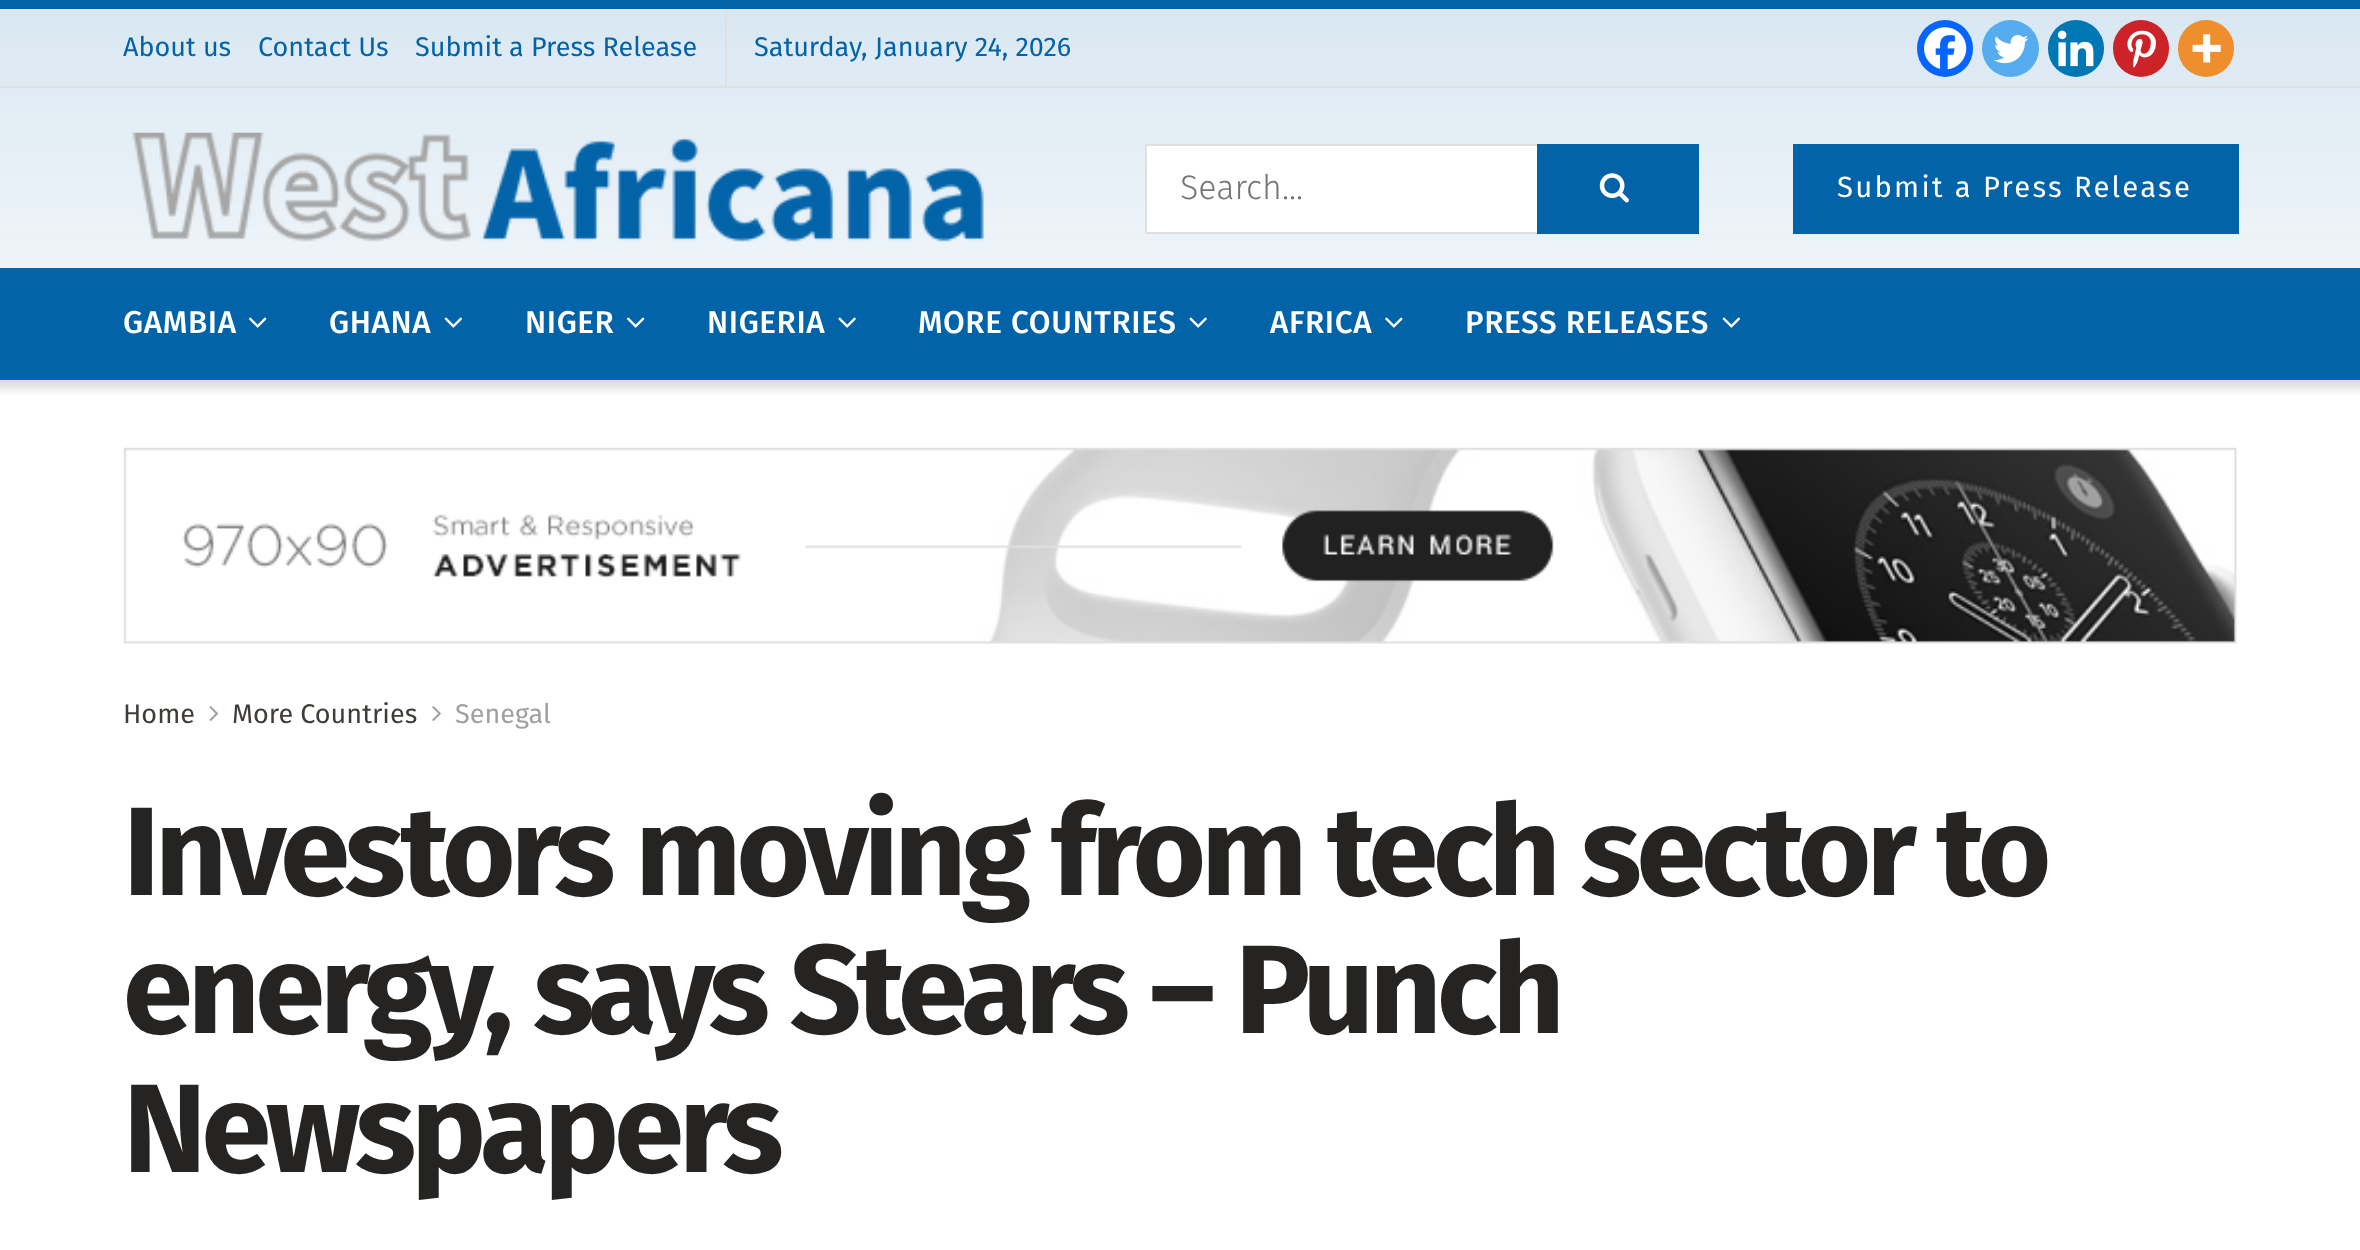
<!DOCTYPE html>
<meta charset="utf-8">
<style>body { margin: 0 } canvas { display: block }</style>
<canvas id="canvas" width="2360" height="1250"></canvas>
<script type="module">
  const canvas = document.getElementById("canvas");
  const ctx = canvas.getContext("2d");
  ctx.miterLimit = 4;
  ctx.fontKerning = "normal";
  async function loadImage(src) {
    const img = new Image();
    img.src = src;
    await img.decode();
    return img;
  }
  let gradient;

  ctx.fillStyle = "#ffffff";
  ctx.fillRect(0, 0, 2360, 1250);
  ctx.drawImage(await loadImage("img1.png"), 0, 9, 2360, 259);
  ctx.fillStyle = "#0263a9";
  ctx.fillRect(0, 0, 2360, 9);
  ctx.fillStyle = "#e0e0e0";
  ctx.fillRect(0, 86, 2360, 2);
  ctx.fillRect(725, 9, 2, 77);
  ctx.font = "27px Fira Sans";
  ctx.fillStyle = "#0263a9";
  ctx.fillText("About us", 123, 56);
  ctx.fillText("Contact Us", 258, 56);
  ctx.fillText("Submit a Press Release", 415, 56);
  ctx.fillText("Saturday, January 24, 2026", 754, 56);
  ctx.fillStyle = "#0765fe";
  ctx.beginPath();
  ctx.roundRect(1917, 20, 56, 57, 28);
  ctx.fill();
  ctx.drawImage(await loadImage("img2.png"), 1924, 27, 43, 43);
  ctx.fillStyle = "#55acee";
  ctx.beginPath();
  ctx.arc(2010.5, 48.5, 28.5, 0, Math.PI * 2);
  ctx.fill();
  ctx.drawImage(await loadImage("img3.png"), 1994, 35, 35, 29);
  ctx.fillStyle = "#0077b5";
  ctx.beginPath();
  ctx.roundRect(2048, 20, 56, 57, 28);
  ctx.fill();
  ctx.drawImage(await loadImage("img4.png"), 2057, 30, 37, 37);
  ctx.fillStyle = "#cc2329";
  ctx.beginPath();
  ctx.roundRect(2113, 20, 56, 57, 28);
  ctx.fill();
  ctx.drawImage(await loadImage("img5.png"), 2127, 30, 29, 38);
  ctx.fillStyle = "#ee8e2d";
  ctx.beginPath();
  ctx.roundRect(2178, 20, 56, 57, 28);
  ctx.fill();
  ctx.drawImage(await loadImage("img6.png"), 2192, 34, 29, 29);
  ctx.drawImage(await loadImage("img7.png"), 132, 132, 852, 110);
  ctx.fillStyle = "#ffffff";
  ctx.fillRect(1147, 146, 390, 86);
  ctx.strokeStyle = "#e0e0e0";
  ctx.lineWidth = 2;
  ctx.strokeRect(1146, 145, 552, 88);
  ctx.font = "300 34px Fira Sans";
  ctx.fillStyle = "#757575";
  ctx.fillText("Search...", 1180, 199);
  ctx.fillStyle = "#0263a9";
  ctx.fillRect(1537, 144, 162, 90);
  ctx.drawImage(await loadImage("img8.png"), 1599, 173, 30, 30);
  ctx.fillRect(1793, 144, 446, 90);
  ctx.letterSpacing = "2.25px";
  ctx.font = "29.25px Fira Sans";
  ctx.fillStyle = "#ffffff";
  ctx.fillText("Submit a Press Release", 1837, 197);
  ctx.fillStyle = "#0263a9";
  ctx.fillRect(0, 268, 2360, 112);
  ctx.letterSpacing = "0.6px";
  ctx.font = "500 31.5px Fira Sans";
  ctx.fillStyle = "#ffffff";
  ctx.fillText("GAMBIA", 123, 333);
  ctx.drawImage(await loadImage("img9.png"), 248, 317, 19, 11);
  ctx.fillText("GHANA", 329, 333);
  ctx.drawImage(await loadImage("img10.png"), 444, 317, 19, 11);
  ctx.fillText("NIGER", 525, 333);
  ctx.drawImage(await loadImage("img9.png"), 626, 317, 19, 11);
  ctx.fillText("NIGERIA", 707, 333);
  ctx.drawImage(await loadImage("img11.png"), 838, 317, 18, 11);
  ctx.fillText("MORE COUNTRIES", 918, 333);
  ctx.drawImage(await loadImage("img11.png"), 1189, 317, 18, 11);
  ctx.fillText("AFRICA", 1270, 333);
  ctx.drawImage(await loadImage("img12.png"), 1385, 317, 18, 11);
  ctx.fillText("PRESS RELEASES", 1465, 333);
  ctx.drawImage(await loadImage("img10.png"), 1722, 317, 19, 11);
  gradient = ctx.createLinearGradient(1180, 380, 1180, 396);
  gradient.addColorStop(0, "#d9d9d9");
  gradient.addColorStop(1, "#ffffff");
  ctx.fillStyle = gradient;
  ctx.fillRect(0, 380, 2360, 15);
  ctx.drawImage(await loadImage("img13.png"), 123, 447, 2114, 197);
  ctx.letterSpacing = "0px";
  ctx.font = "27px Fira Sans";
  ctx.fillStyle = "#403d39";
  ctx.fillText("Home", 123, 723);
  ctx.drawImage(await loadImage("img14.png"), 209, 706, 10, 15);
  ctx.fillText("More Countries", 232, 723);
  ctx.drawImage(await loadImage("img15.png"), 432, 706, 9, 15);
  ctx.fillStyle = "#a0a0a0";
  ctx.fillText("Senegal", 455, 723);
  ctx.letterSpacing = "-5.05px";
  ctx.font = "bold 126px Fira Sans";
  ctx.fillStyle = "#252422";
  ctx.fillText("Investors moving from tech sector to", 123, 895);
  ctx.fillText("energy, says Stears – Punch", 123, 1033);
  ctx.fillText("Newspapers", 123, 1172);
</script>
